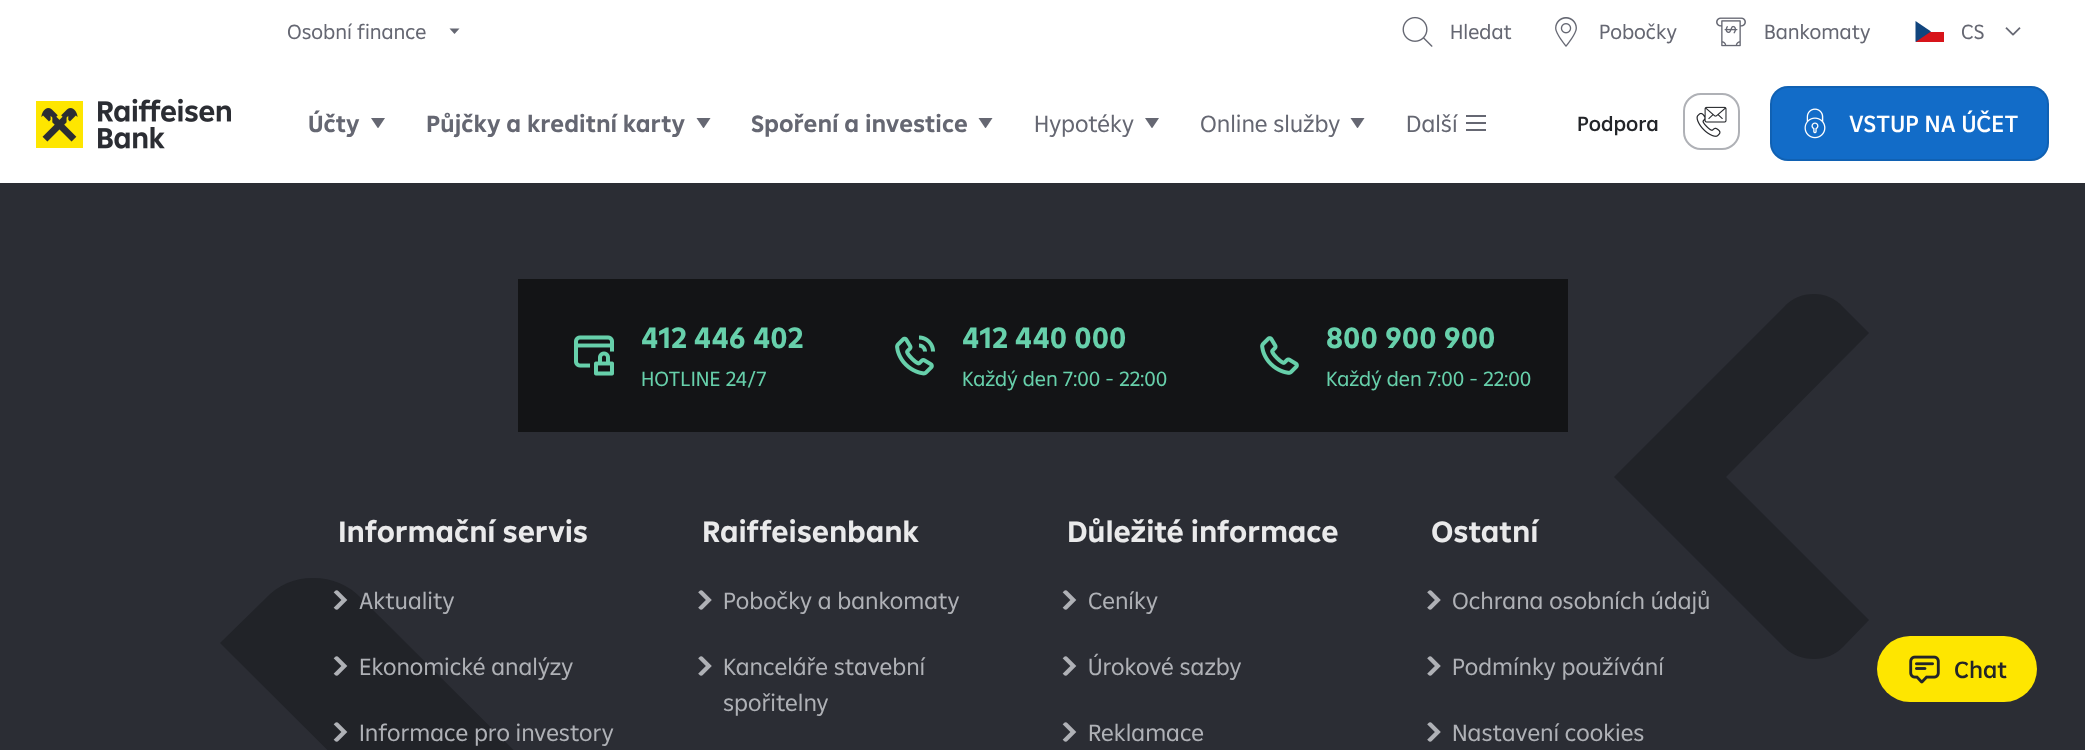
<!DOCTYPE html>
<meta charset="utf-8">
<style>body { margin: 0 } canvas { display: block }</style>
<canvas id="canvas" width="2085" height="750"></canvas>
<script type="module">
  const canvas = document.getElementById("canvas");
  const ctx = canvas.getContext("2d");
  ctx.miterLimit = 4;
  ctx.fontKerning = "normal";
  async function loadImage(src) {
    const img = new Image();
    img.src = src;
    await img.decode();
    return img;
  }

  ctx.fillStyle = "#ffffff";
  ctx.fillRect(0, 0, 2085, 750);
  ctx.font = "21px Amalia";
  ctx.fillStyle = "#656772";
  ctx.fillText("Osobní finance", 287, 39);
  ctx.beginPath();
  ctx.moveTo(449.5, 28.5);
  ctx.lineTo(454.5, 34);
  ctx.lineTo(459.5, 28.5);
  ctx.closePath();
  ctx.fill();
  ctx.fillStyle = "#d7141a";
  ctx.fillRect(1916, 32, 28, 10);
  ctx.fillStyle = "#11457e";
  ctx.beginPath();
  ctx.moveTo(1931, 31.5);
  ctx.lineTo(1915.5, 21);
  ctx.lineTo(1915.5, 42);
  ctx.closePath();
  ctx.fill();
  ctx.fillStyle = "#656772";
  ctx.fillText("CS", 1961, 39);
  ctx.drawImage(await loadImage("img1.png"), 2005, 27, 16, 9);
  ctx.drawImage(await loadImage("img2.png"), 1402, 16, 31, 31);
  ctx.fillText("Hledat", 1450, 39);
  ctx.drawImage(await loadImage("img3.png"), 1555, 17, 22, 30);
  ctx.fillText("Pobočky", 1599, 39);
  ctx.drawImage(await loadImage("img4.png"), 1716, 17, 30, 30);
  ctx.fillText("Bankomaty", 1764, 39);
  ctx.drawImage(await loadImage("img5.png"), 36, 98, 195, 51);
  ctx.font = "bold 24px Amalia";
  ctx.fillText("Účty", 308, 132);
  ctx.drawImage(await loadImage("img6.png"), 371, 118, 14, 10);
  ctx.fillText("Půjčky a kreditní karty", 426, 132);
  ctx.drawImage(await loadImage("img7.png"), 696, 118, 15, 10);
  ctx.fillText("Spoření a investice", 751, 132);
  ctx.drawImage(await loadImage("img7.png"), 978, 118, 15, 10);
  ctx.font = "24px Amalia";
  ctx.fillText("Hypotéky", 1034, 132);
  ctx.drawImage(await loadImage("img6.png"), 1145, 118, 14, 10);
  ctx.fillText("Online služby", 1200, 132);
  ctx.drawImage(await loadImage("img7.png"), 1350, 118, 15, 10);
  ctx.fillText("Další", 1406, 132);
  ctx.drawImage(await loadImage("img8.png"), 1466, 115, 20, 16);
  ctx.font = "500 21px Amalia";
  ctx.fillStyle = "#232529";
  ctx.fillText("Podpora", 1577, 131);
  ctx.beginPath();
  ctx.roundRect(1684, 94, 55, 55, 17);
  ctx.strokeStyle = "#afb1b6";
  ctx.lineWidth = 2;
  ctx.stroke();
  ctx.drawImage(await loadImage("img9.png"), 1696, 106, 31, 31);
  ctx.fillStyle = "#126cc8";
  ctx.beginPath();
  ctx.roundRect(1770, 86, 279, 75, 18);
  ctx.fill();
  ctx.beginPath();
  ctx.roundRect(1771, 87, 277, 73, 17);
  ctx.strokeStyle = "rgba(0, 0, 0, 0.1)";
  ctx.stroke();
  ctx.drawImage(await loadImage("img10.png"), 1804, 108, 22, 31);
  ctx.font = "500 24px Amalia";
  ctx.fillStyle = "#ffffff";
  ctx.fillText("VSTUP NA ÚČET", 1849, 132);
  ctx.fillStyle = "#2b2d34";
  ctx.fillRect(0, 183, 2085, 567);
  ctx.fillStyle = "#131416";
  ctx.fillRect(518, 279, 1050, 153);
  ctx.drawImage(await loadImage("img11.png"), 574, 335, 40, 41);
  ctx.font = "bold 30px Amalia";
  ctx.fillStyle = "#67d0ab";
  ctx.fillText("412 446 402", 641, 348);
  ctx.font = "21px Amalia";
  ctx.fillText("HOTLINE 24/7", 641, 386);
  ctx.drawImage(await loadImage("img12.png"), 895, 335, 40, 41);
  ctx.font = "bold 30px Amalia";
  ctx.fillText("412 440 000", 962, 348);
  ctx.font = "21px Amalia";
  ctx.fillText("Každý den 7:00 - 22:00", 962, 386);
  ctx.drawImage(await loadImage("img13.png"), 1260, 336, 39, 39);
  ctx.font = "bold 30px Amalia";
  ctx.fillText("800 900 900", 1326, 348);
  ctx.font = "21px Amalia";
  ctx.fillText("Každý den 7:00 - 22:00", 1326, 386);
  ctx.letterSpacing = "-0.1px";
  ctx.font = "bold 30px Amalia";
  ctx.fillStyle = "#eaeaeb";
  ctx.fillText("Informační servis", 338, 542);
  ctx.fillStyle = "#212328";
  ctx.beginPath();
  ctx.moveTo(220, 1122);
  ctx.lineTo(265, 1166);
  ctx.bezierCurveTo(278, 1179, 294, 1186, 313, 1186);
  ctx.bezierCurveTo(332, 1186, 349, 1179, 362, 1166);
  ctx.lineTo(646, 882);
  ctx.lineTo(362, 599);
  ctx.bezierCurveTo(349, 585, 332, 578, 313, 578);
  ctx.bezierCurveTo(294, 578, 278, 585, 265, 599);
  ctx.lineTo(220, 643);
  ctx.lineTo(460, 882);
  ctx.closePath();
  ctx.fill();
  ctx.drawImage(await loadImage("img14.png"), 333, 590, 15, 20);
  ctx.letterSpacing = "0px";
  ctx.font = "24px Amalia";
  ctx.fillStyle = "#afb1b6";
  ctx.fillText("Aktuality", 359, 609);
  ctx.drawImage(await loadImage("img14.png"), 333, 656, 15, 20);
  ctx.fillText("Ekonomické analýzy", 359, 675);
  ctx.drawImage(await loadImage("img14.png"), 333, 722, 15, 20);
  ctx.fillText("Informace pro investory", 359, 741);
  ctx.letterSpacing = "-0.1px";
  ctx.font = "bold 30px Amalia";
  ctx.fillStyle = "#eaeaeb";
  ctx.fillText("Raiffeisenbank", 702, 542);
  ctx.drawImage(await loadImage("img15.png"), 698, 590, 14, 20);
  ctx.letterSpacing = "0px";
  ctx.font = "24px Amalia";
  ctx.fillStyle = "#afb1b6";
  ctx.fillText("Pobočky a bankomaty", 723, 609);
  ctx.drawImage(await loadImage("img15.png"), 698, 656, 14, 20);
  ctx.fillText("Kanceláře stavební", 723, 675);
  ctx.fillText("spořitelny", 723, 711);
  ctx.letterSpacing = "-0.1px";
  ctx.font = "bold 30px Amalia";
  ctx.fillStyle = "#eaeaeb";
  ctx.fillText("Důležité informace", 1067, 542);
  ctx.drawImage(await loadImage("img16.png"), 1062, 590, 15, 20);
  ctx.letterSpacing = "0px";
  ctx.font = "24px Amalia";
  ctx.fillStyle = "#afb1b6";
  ctx.fillText("Ceníky", 1088, 609);
  ctx.drawImage(await loadImage("img16.png"), 1062, 656, 15, 20);
  ctx.fillText("Úrokové sazby", 1088, 675);
  ctx.drawImage(await loadImage("img16.png"), 1062, 722, 15, 20);
  ctx.fillText("Reklamace", 1088, 741);
  ctx.letterSpacing = "-0.1px";
  ctx.font = "bold 30px Amalia";
  ctx.fillStyle = "#eaeaeb";
  ctx.fillText("Ostatní", 1431, 542);
  ctx.drawImage(await loadImage("img15.png"), 1427, 590, 14, 20);
  ctx.fillStyle = "#212328";
  ctx.beginPath();
  ctx.moveTo(1869, 620);
  ctx.lineTo(1843, 647);
  ctx.bezierCurveTo(1835, 655, 1825, 659, 1814, 659);
  ctx.bezierCurveTo(1802, 659, 1792, 655, 1784, 647);
  ctx.lineTo(1614, 477);
  ctx.lineTo(1784, 307);
  ctx.bezierCurveTo(1792, 298, 1802, 294, 1814, 294);
  ctx.bezierCurveTo(1825, 294, 1835, 298, 1843, 307);
  ctx.lineTo(1869, 333);
  ctx.lineTo(1726, 477);
  ctx.closePath();
  ctx.fill();
  ctx.letterSpacing = "0px";
  ctx.font = "24px Amalia";
  ctx.fillStyle = "#afb1b6";
  ctx.fillText("Ochrana osobních údajů", 1452, 609);
  ctx.drawImage(await loadImage("img15.png"), 1427, 656, 14, 20);
  ctx.fillText("Podmínky používání", 1452, 675);
  ctx.drawImage(await loadImage("img15.png"), 1427, 722, 14, 20);
  ctx.fillText("Nastavení cookies", 1452, 741);
  ctx.fillStyle = "#fee600";
  ctx.beginPath();
  ctx.roundRect(1877, 636, 160, 66, 33);
  ctx.fill();
  ctx.drawImage(await loadImage("img17.png"), 1909, 655, 31, 29);
  ctx.font = "500 24px Amalia";
  ctx.fillStyle = "#232529";
  ctx.fillText("Chat", 1954, 678);
</script>
